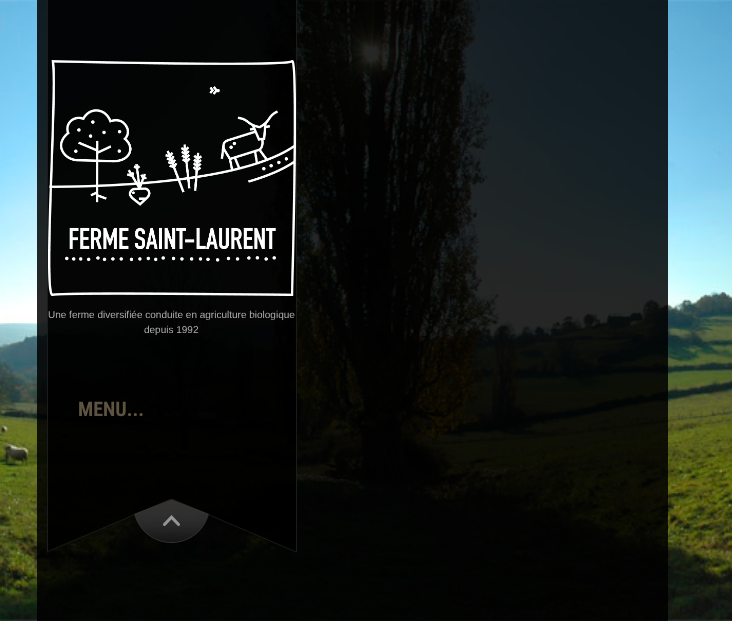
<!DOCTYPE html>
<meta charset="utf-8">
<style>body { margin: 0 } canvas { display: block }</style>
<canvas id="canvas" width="732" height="621"></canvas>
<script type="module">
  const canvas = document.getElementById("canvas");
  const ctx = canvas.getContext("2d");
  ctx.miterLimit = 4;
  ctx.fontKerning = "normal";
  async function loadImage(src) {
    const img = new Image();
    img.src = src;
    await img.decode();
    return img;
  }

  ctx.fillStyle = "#ffffff";
  ctx.fillRect(0, 0, 732, 621);
  ctx.drawImage(await loadImage("img1.png"), 0, 0, 732, 621);
  ctx.fillStyle = "rgba(0, 0, 0, 0.85)";
  ctx.fillRect(37, 0, 631, 621);
  ctx.fillStyle = "#1b1b1b";
  ctx.fillRect(296, 0, 1, 552);
  ctx.fillRect(47, 0, 1, 552);
  ctx.fillStyle = "rgba(0, 0, 0, 0.85)";
  ctx.fillRect(48, 0, 248, 395);
  ctx.drawImage(await loadImage("img2.png"), 48, 60, 248, 236);
  ctx.font = "10px Liberation Sans";
  ctx.fillStyle = "#aeaeae";
  ctx.fillText("Une ferme diversifiée conduite en agriculture biologique", 48, 318);
  ctx.fillText("depuis 1992", 144, 333);
  ctx.fillStyle = "rgba(0, 0, 0, 0.85)";
  ctx.fillRect(48, 395, 248, 104);
  ctx.font = "bold 20px Roboto Condensed";
  ctx.fillStyle = "#5e5340";
  ctx.fillText("MENU...", 78, 416);
  ctx.drawImage(await loadImage("img3.png"), 48, 499, 248, 53);
  ctx.drawImage(await loadImage("img4.png"), 134, 499, 75, 44);
</script>
